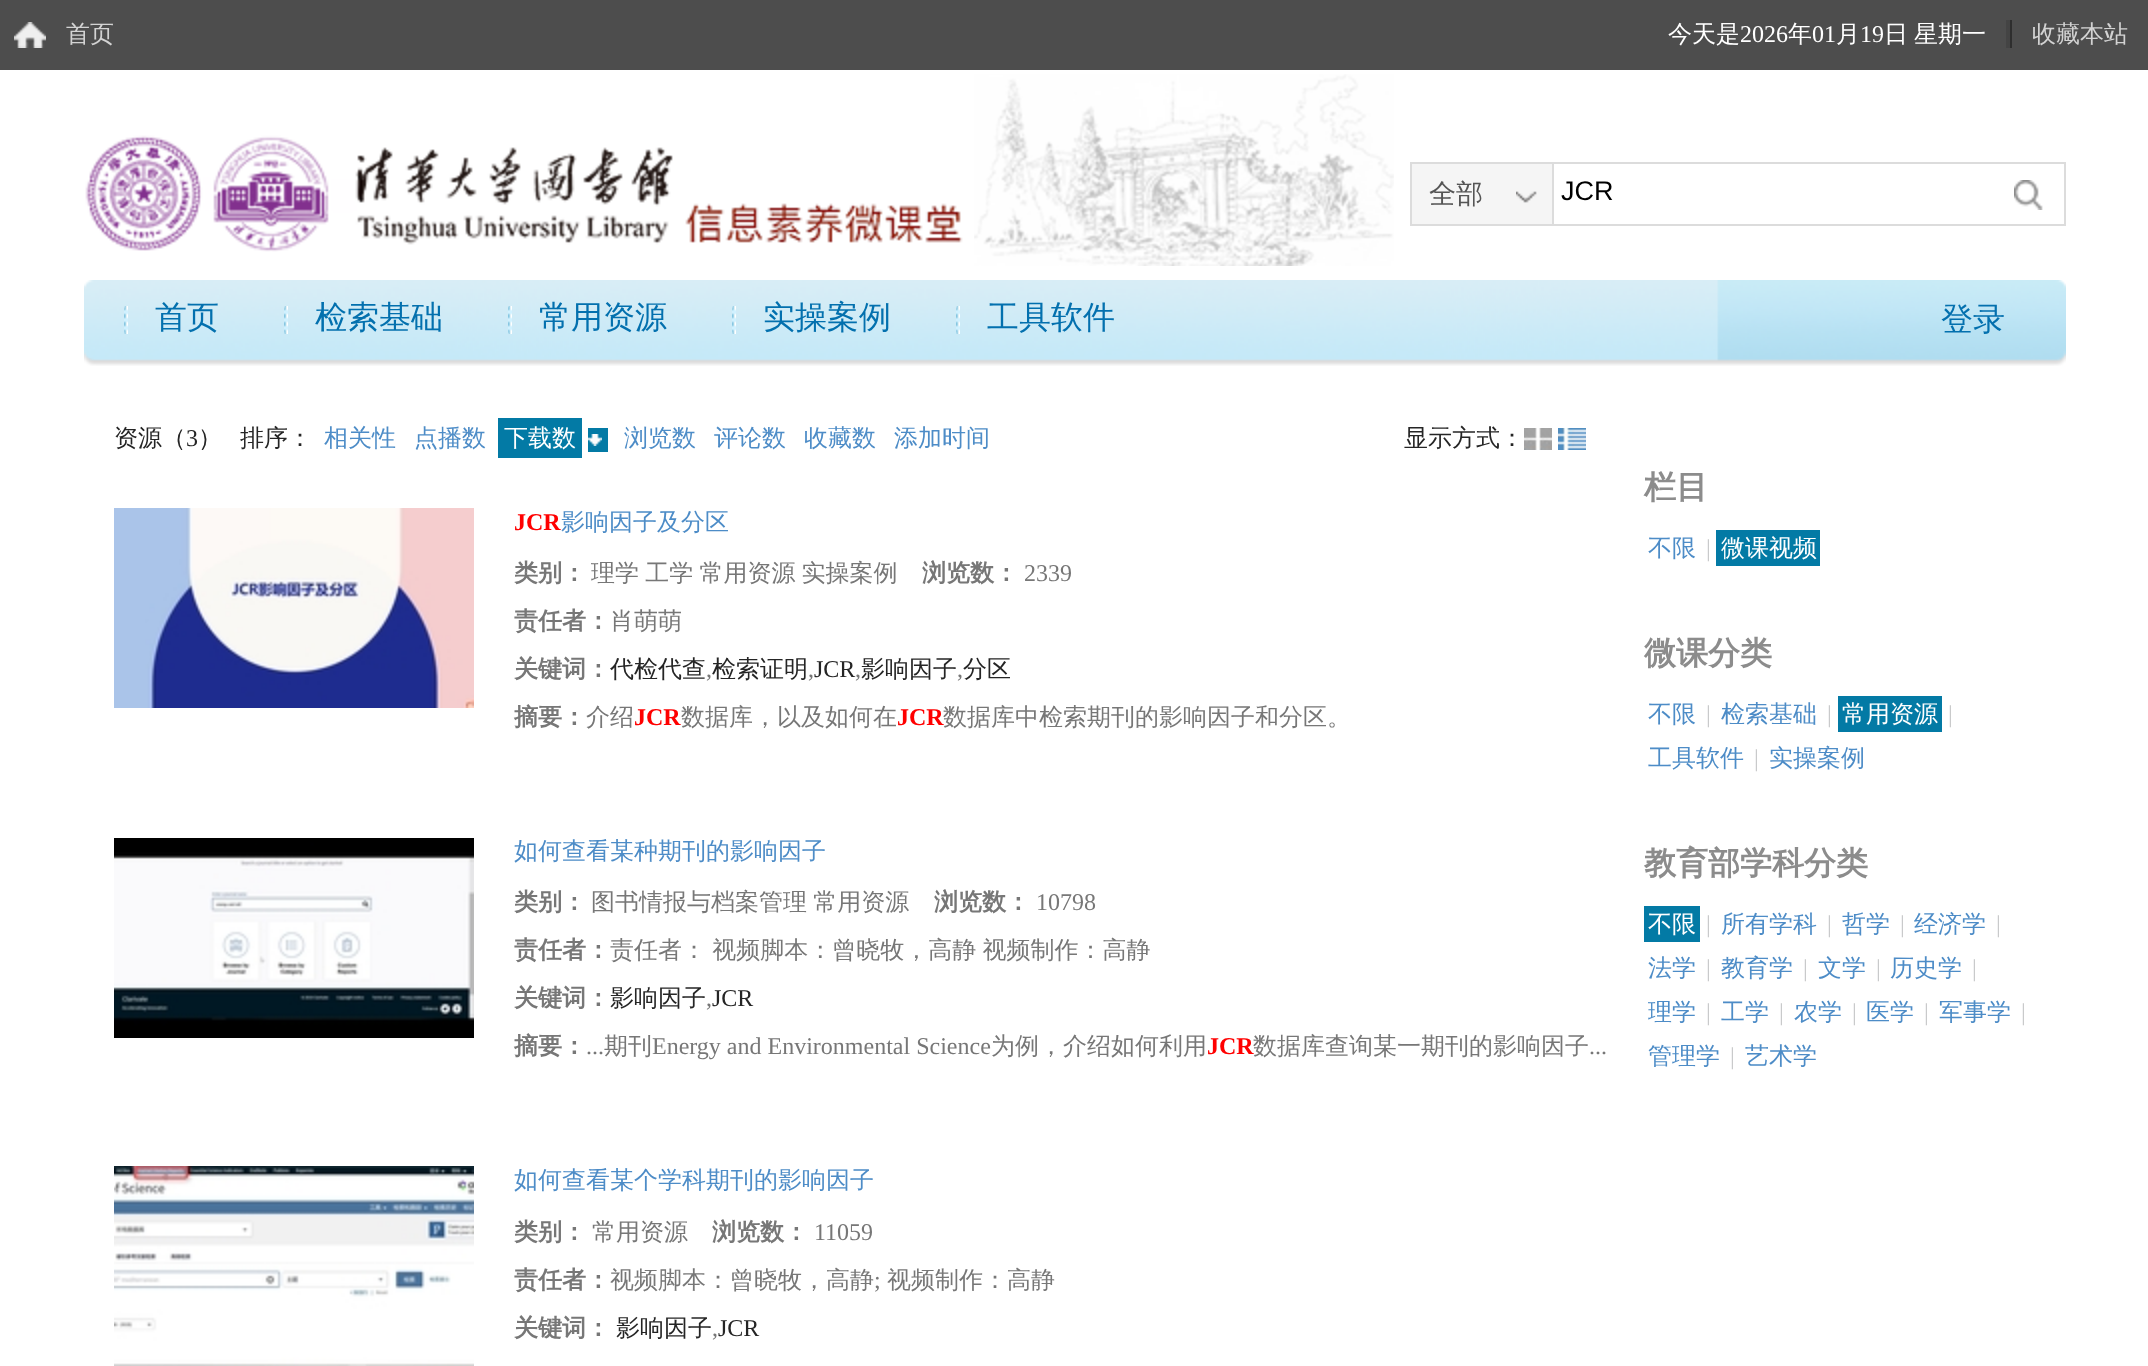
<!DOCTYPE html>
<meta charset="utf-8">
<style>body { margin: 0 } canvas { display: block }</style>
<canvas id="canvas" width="2148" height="1366"></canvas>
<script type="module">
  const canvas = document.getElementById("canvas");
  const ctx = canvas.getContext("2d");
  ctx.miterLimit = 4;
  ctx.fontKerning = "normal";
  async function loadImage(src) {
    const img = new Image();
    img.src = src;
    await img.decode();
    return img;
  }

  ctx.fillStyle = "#ffffff";
  ctx.fillRect(0, 0, 2148, 1366);
  ctx.fillStyle = "#4d4d4d";
  ctx.fillRect(0, 0, 2148, 70);
  ctx.drawImage(await loadImage("img1.png"), 14, 22, 32, 26);
  ctx.font = "500 24px WenQuanYi Zen Hei";
  ctx.fillStyle = "#d3d3d3";
  ctx.fillText("首页", 66, 42);
  ctx.fillStyle = "#ffffff";
  ctx.fillText("今天是", 1668, 42);
  ctx.font = "24px Liberation Serif";
  ctx.fillText("2026", 1740, 42);
  ctx.font = "500 24px WenQuanYi Zen Hei";
  ctx.fillText("年", 1788, 42);
  ctx.font = "24px Liberation Serif";
  ctx.fillText("01", 1812, 42);
  ctx.font = "500 24px WenQuanYi Zen Hei";
  ctx.fillText("月", 1836, 42);
  ctx.font = "24px Liberation Serif";
  ctx.fillText("19", 1860, 42);
  ctx.font = "500 24px WenQuanYi Zen Hei";
  ctx.fillText("日", 1884, 42);
  ctx.fillText("星期一", 1914, 42);
  ctx.fillStyle = "#444444";
  ctx.fillRect(2006, 20, 4, 28);
  ctx.fillStyle = "#d3d3d3";
  ctx.fillText("收藏本站", 2032, 42);
  ctx.fillStyle = "#2e2e2e";
  ctx.fillRect(2010, 20, 2, 28);
  ctx.drawImage(await loadImage("img2.png"), 85, 135, 878, 117);
  ctx.drawImage(await loadImage("img3.png"), 974, 74, 420, 192);
  ctx.strokeStyle = "#dcdcdc";
  ctx.lineWidth = 2;
  ctx.strokeRect(1411, 163, 654, 62);
  ctx.fillStyle = "#f5f5f5";
  ctx.fillRect(1412, 164, 140, 60);
  ctx.drawImage(await loadImage("img4.png"), 1516, 191, 21, 12);
  ctx.fillStyle = "#dcdcdc";
  ctx.fillRect(1552, 164, 2, 60);
  ctx.font = "500 27px WenQuanYi Zen Hei";
  ctx.fillStyle = "#555555";
  ctx.fillText("全部", 1429, 203);
  ctx.font = "27px Liberation Sans";
  ctx.fillStyle = "#000000";
  ctx.fillText("JCR", 1561, 200);
  ctx.drawImage(await loadImage("img5.png"), 2014, 180, 29, 30);
  ctx.drawImage(await loadImage("img6.png"), 84, 280, 1982, 86);
  ctx.drawImage(await loadImage("img7.png"), 124, 306, 4, 28);
  ctx.font = "500 32px WenQuanYi Zen Hei";
  ctx.fillStyle = "#0370ae";
  ctx.fillText("首页", 155, 328);
  ctx.drawImage(await loadImage("img8.png"), 284, 306, 4, 28);
  ctx.fillText("检索基础", 315, 328);
  ctx.drawImage(await loadImage("img9.png"), 508, 306, 4, 28);
  ctx.fillText("常用资源", 539, 328);
  ctx.drawImage(await loadImage("img10.png"), 732, 306, 4, 28);
  ctx.fillText("实操案例", 763, 328);
  ctx.drawImage(await loadImage("img11.png"), 956, 306, 4, 28);
  ctx.fillText("工具软件", 987, 328);
  ctx.fillText("登录", 1941, 330);
  ctx.font = "500 24px WenQuanYi Zen Hei";
  ctx.fillStyle = "#252525";
  ctx.fillText("资源（", 114, 446);
  ctx.font = "24px Liberation Serif";
  ctx.fillText("3", 186, 446);
  ctx.font = "500 24px WenQuanYi Zen Hei";
  ctx.fillText("）", 198, 446);
  ctx.fillText("排序：", 240, 446);
  ctx.fillStyle = "#4d8cc7";
  ctx.fillText("相关性", 324, 446);
  ctx.fillText("点播数", 414, 446);
  ctx.fillStyle = "#037aa5";
  ctx.fillRect(498, 418, 84, 40);
  ctx.fillRect(588, 428, 20, 24);
  ctx.fillStyle = "#ffffff";
  ctx.fillText("下载数", 504, 446);
  ctx.drawImage(await loadImage("img12.png"), 588, 434, 14, 12);
  ctx.fillStyle = "#4d8cc7";
  ctx.fillText("浏览数", 624, 446);
  ctx.fillText("评论数", 714, 446);
  ctx.fillText("收藏数", 804, 446);
  ctx.fillText("添加时间", 894, 446);
  ctx.fillStyle = "#252525";
  ctx.fillText("显示方式：", 1404, 446);
  ctx.drawImage(await loadImage("img13.png"), 1524, 428, 28, 22);
  ctx.drawImage(await loadImage("img14.png"), 1558, 428, 28, 22);
  ctx.drawImage(await loadImage("img15.png"), 114, 508, 360, 200);
  ctx.font = "bold 24px Liberation Serif";
  ctx.fillStyle = "#ff0000";
  ctx.fillText("JCR", 514, 530);
  ctx.font = "500 24px WenQuanYi Zen Hei";
  ctx.fillStyle = "#4d8cc7";
  ctx.fillText("影响因子及分区", 561, 530);
  ctx.font = "bold 24px WenQuanYi Zen Hei";
  ctx.fillStyle = "#777777";
  ctx.fillText("类别：", 514, 581);
  ctx.wordSpacing = "-1px";
  ctx.font = "500 24px WenQuanYi Zen Hei";
  ctx.fillText("理学 工学 常用资源 实操案例", 591, 581);
  ctx.wordSpacing = "0px";
  ctx.font = "bold 24px WenQuanYi Zen Hei";
  ctx.fillText("浏览数：", 922, 581);
  ctx.font = "24px Liberation Serif";
  ctx.fillText("2339", 1024, 581);
  ctx.font = "bold 24px WenQuanYi Zen Hei";
  ctx.fillText("责任者：", 514, 629);
  ctx.font = "500 24px WenQuanYi Zen Hei";
  ctx.fillText("肖萌萌", 610, 629);
  ctx.font = "bold 24px WenQuanYi Zen Hei";
  ctx.fillText("关键词：", 514, 677);
  ctx.font = "500 24px WenQuanYi Zen Hei";
  ctx.fillStyle = "#252525";
  ctx.fillText("代检代查", 610, 677);
  ctx.font = "24px Liberation Serif";
  ctx.fillStyle = "#777777";
  ctx.fillText(",", 706, 677);
  ctx.font = "500 24px WenQuanYi Zen Hei";
  ctx.fillStyle = "#252525";
  ctx.fillText("检索证明", 712, 677);
  ctx.font = "24px Liberation Serif";
  ctx.fillStyle = "#777777";
  ctx.fillText(",", 808, 677);
  ctx.fillStyle = "#252525";
  ctx.fillText("JCR", 814, 677);
  ctx.fillStyle = "#777777";
  ctx.fillText(",", 855, 677);
  ctx.font = "500 24px WenQuanYi Zen Hei";
  ctx.fillStyle = "#252525";
  ctx.fillText("影响因子", 861, 677);
  ctx.font = "24px Liberation Serif";
  ctx.fillStyle = "#777777";
  ctx.fillText(",", 957, 677);
  ctx.font = "500 24px WenQuanYi Zen Hei";
  ctx.fillStyle = "#252525";
  ctx.fillText("分区", 963, 677);
  ctx.font = "bold 24px WenQuanYi Zen Hei";
  ctx.fillStyle = "#777777";
  ctx.fillText("摘要：", 514, 725);
  ctx.font = "500 24px WenQuanYi Zen Hei";
  ctx.fillText("介绍", 586, 725);
  ctx.font = "bold 24px Liberation Serif";
  ctx.fillStyle = "#ff0000";
  ctx.fillText("JCR", 634, 725);
  ctx.font = "500 24px WenQuanYi Zen Hei";
  ctx.fillStyle = "#777777";
  ctx.fillText("数据库，以及如何在", 681, 725);
  ctx.font = "bold 24px Liberation Serif";
  ctx.fillStyle = "#ff0000";
  ctx.fillText("JCR", 897, 725);
  ctx.font = "500 24px WenQuanYi Zen Hei";
  ctx.fillStyle = "#777777";
  ctx.fillText("数据库中检索期刊的影响因子和分区。", 943, 725);
  ctx.drawImage(await loadImage("img16.png"), 114, 838, 360, 200);
  ctx.fillStyle = "#4d8cc7";
  ctx.fillText("如何查看某种期刊的影响因子", 514, 859);
  ctx.font = "bold 24px WenQuanYi Zen Hei";
  ctx.fillStyle = "#777777";
  ctx.fillText("类别：", 514, 910);
  ctx.wordSpacing = "-1px";
  ctx.font = "500 24px WenQuanYi Zen Hei";
  ctx.fillText("图书情报与档案管理 常用资源", 591, 910);
  ctx.wordSpacing = "0px";
  ctx.font = "bold 24px WenQuanYi Zen Hei";
  ctx.fillText("浏览数：", 934, 910);
  ctx.font = "24px Liberation Serif";
  ctx.fillText("10798", 1036, 910);
  ctx.font = "bold 24px WenQuanYi Zen Hei";
  ctx.fillText("责任者：", 514, 958);
  ctx.wordSpacing = "-1px";
  ctx.font = "500 24px WenQuanYi Zen Hei";
  ctx.fillText("责任者： 视频脚本：曾晓牧，高静 视频制作：高静", 610, 958);
  ctx.wordSpacing = "0px";
  ctx.font = "bold 24px WenQuanYi Zen Hei";
  ctx.fillText("关键词：", 514, 1006);
  ctx.font = "500 24px WenQuanYi Zen Hei";
  ctx.fillStyle = "#252525";
  ctx.fillText("影响因子", 610, 1006);
  ctx.font = "24px Liberation Serif";
  ctx.fillStyle = "#777777";
  ctx.fillText(",", 706, 1006);
  ctx.fillStyle = "#252525";
  ctx.fillText("JCR", 712, 1006);
  ctx.font = "bold 24px WenQuanYi Zen Hei";
  ctx.fillStyle = "#777777";
  ctx.fillText("摘要：", 514, 1054);
  ctx.font = "24px Liberation Serif";
  ctx.fillText("...", 586, 1054);
  ctx.font = "500 24px WenQuanYi Zen Hei";
  ctx.fillText("期刊", 604, 1054);
  ctx.font = "24px Liberation Serif";
  ctx.fillText("Energy and Environmental Science", 652, 1054);
  ctx.font = "500 24px WenQuanYi Zen Hei";
  ctx.fillText("为例，介绍如何利用", 991, 1054);
  ctx.font = "bold 24px Liberation Serif";
  ctx.fillStyle = "#ff0000";
  ctx.fillText("JCR", 1207, 1054);
  ctx.font = "500 24px WenQuanYi Zen Hei";
  ctx.fillStyle = "#777777";
  ctx.fillText("数据库查询某一期刊的影响因子", 1253, 1054);
  ctx.font = "24px Liberation Serif";
  ctx.fillText("...", 1589, 1054);
  ctx.drawImage(await loadImage("img17.png"), 114, 1166, 360, 200);
  ctx.font = "500 24px WenQuanYi Zen Hei";
  ctx.fillStyle = "#4d8cc7";
  ctx.fillText("如何查看某个学科期刊的影响因子", 514, 1188);
  ctx.font = "bold 24px WenQuanYi Zen Hei";
  ctx.fillStyle = "#777777";
  ctx.fillText("类别：", 514, 1240);
  ctx.font = "500 24px WenQuanYi Zen Hei";
  ctx.fillText("常用资源", 592, 1240);
  ctx.font = "bold 24px WenQuanYi Zen Hei";
  ctx.fillText("浏览数：", 712, 1240);
  ctx.font = "24px Liberation Serif";
  ctx.fillText("11059", 814, 1240);
  ctx.font = "bold 24px WenQuanYi Zen Hei";
  ctx.fillText("责任者：", 514, 1288);
  ctx.font = "500 24px WenQuanYi Zen Hei";
  ctx.fillText("视频脚本：曾晓牧，高静", 610, 1288);
  ctx.font = "24px Liberation Serif";
  ctx.fillText(";", 874, 1288);
  ctx.font = "500 24px WenQuanYi Zen Hei";
  ctx.fillText("视频制作：高静", 887, 1288);
  ctx.font = "bold 24px WenQuanYi Zen Hei";
  ctx.fillText("关键词：", 514, 1336);
  ctx.font = "500 24px WenQuanYi Zen Hei";
  ctx.fillStyle = "#252525";
  ctx.fillText("影响因子", 616, 1336);
  ctx.font = "24px Liberation Serif";
  ctx.fillStyle = "#777777";
  ctx.fillText(",", 712, 1336);
  ctx.fillStyle = "#252525";
  ctx.fillText("JCR", 718, 1336);
  ctx.font = "bold 32px WenQuanYi Zen Hei";
  ctx.fillStyle = "#8c8c8c";
  ctx.fillText("栏目", 1644, 498);
  ctx.font = "500 24px WenQuanYi Zen Hei";
  ctx.fillStyle = "#4d8cc7";
  ctx.fillText("不限", 1648, 556);
  ctx.font = "24px Liberation Serif";
  ctx.fillStyle = "#c9cacb";
  ctx.fillText("|", 1706, 556);
  ctx.fillStyle = "#037aa5";
  ctx.fillRect(1716, 530, 104, 36);
  ctx.font = "500 24px WenQuanYi Zen Hei";
  ctx.fillStyle = "#ffffff";
  ctx.fillText("微课视频", 1721, 556);
  ctx.font = "bold 32px WenQuanYi Zen Hei";
  ctx.fillStyle = "#8c8c8c";
  ctx.fillText("微课分类", 1644, 664);
  ctx.font = "500 24px WenQuanYi Zen Hei";
  ctx.fillStyle = "#4d8cc7";
  ctx.fillText("不限", 1648, 722);
  ctx.font = "24px Liberation Serif";
  ctx.fillStyle = "#c9cacb";
  ctx.fillText("|", 1706, 722);
  ctx.font = "500 24px WenQuanYi Zen Hei";
  ctx.fillStyle = "#4d8cc7";
  ctx.fillText("检索基础", 1721, 722);
  ctx.font = "24px Liberation Serif";
  ctx.fillStyle = "#c9cacb";
  ctx.fillText("|", 1827, 722);
  ctx.fillStyle = "#037aa5";
  ctx.fillRect(1838, 696, 104, 36);
  ctx.font = "500 24px WenQuanYi Zen Hei";
  ctx.fillStyle = "#ffffff";
  ctx.fillText("常用资源", 1842, 722);
  ctx.font = "24px Liberation Serif";
  ctx.fillStyle = "#c9cacb";
  ctx.fillText("|", 1948, 722);
  ctx.font = "500 24px WenQuanYi Zen Hei";
  ctx.fillStyle = "#4d8cc7";
  ctx.fillText("工具软件", 1648, 766);
  ctx.font = "24px Liberation Serif";
  ctx.fillStyle = "#c9cacb";
  ctx.fillText("|", 1754, 766);
  ctx.font = "500 24px WenQuanYi Zen Hei";
  ctx.fillStyle = "#4d8cc7";
  ctx.fillText("实操案例", 1769, 766);
  ctx.font = "bold 32px WenQuanYi Zen Hei";
  ctx.fillStyle = "#8c8c8c";
  ctx.fillText("教育部学科分类", 1644, 874);
  ctx.fillStyle = "#037aa5";
  ctx.fillRect(1644, 906, 56, 36);
  ctx.font = "500 24px WenQuanYi Zen Hei";
  ctx.fillStyle = "#ffffff";
  ctx.fillText("不限", 1648, 932);
  ctx.font = "24px Liberation Serif";
  ctx.fillStyle = "#c9cacb";
  ctx.fillText("|", 1706, 932);
  ctx.font = "500 24px WenQuanYi Zen Hei";
  ctx.fillStyle = "#4d8cc7";
  ctx.fillText("所有学科", 1721, 932);
  ctx.font = "24px Liberation Serif";
  ctx.fillStyle = "#c9cacb";
  ctx.fillText("|", 1827, 932);
  ctx.font = "500 24px WenQuanYi Zen Hei";
  ctx.fillStyle = "#4d8cc7";
  ctx.fillText("哲学", 1842, 932);
  ctx.font = "24px Liberation Serif";
  ctx.fillStyle = "#c9cacb";
  ctx.fillText("|", 1900, 932);
  ctx.font = "500 24px WenQuanYi Zen Hei";
  ctx.fillStyle = "#4d8cc7";
  ctx.fillText("经济学", 1914, 932);
  ctx.font = "24px Liberation Serif";
  ctx.fillStyle = "#c9cacb";
  ctx.fillText("|", 1996, 932);
  ctx.font = "500 24px WenQuanYi Zen Hei";
  ctx.fillStyle = "#4d8cc7";
  ctx.fillText("法学", 1648, 976);
  ctx.font = "24px Liberation Serif";
  ctx.fillStyle = "#c9cacb";
  ctx.fillText("|", 1706, 976);
  ctx.font = "500 24px WenQuanYi Zen Hei";
  ctx.fillStyle = "#4d8cc7";
  ctx.fillText("教育学", 1721, 976);
  ctx.font = "24px Liberation Serif";
  ctx.fillStyle = "#c9cacb";
  ctx.fillText("|", 1803, 976);
  ctx.font = "500 24px WenQuanYi Zen Hei";
  ctx.fillStyle = "#4d8cc7";
  ctx.fillText("文学", 1818, 976);
  ctx.font = "24px Liberation Serif";
  ctx.fillStyle = "#c9cacb";
  ctx.fillText("|", 1876, 976);
  ctx.font = "500 24px WenQuanYi Zen Hei";
  ctx.fillStyle = "#4d8cc7";
  ctx.fillText("历史学", 1890, 976);
  ctx.font = "24px Liberation Serif";
  ctx.fillStyle = "#c9cacb";
  ctx.fillText("|", 1972, 976);
  ctx.font = "500 24px WenQuanYi Zen Hei";
  ctx.fillStyle = "#4d8cc7";
  ctx.fillText("理学", 1648, 1020);
  ctx.font = "24px Liberation Serif";
  ctx.fillStyle = "#c9cacb";
  ctx.fillText("|", 1706, 1020);
  ctx.font = "500 24px WenQuanYi Zen Hei";
  ctx.fillStyle = "#4d8cc7";
  ctx.fillText("工学", 1721, 1020);
  ctx.font = "24px Liberation Serif";
  ctx.fillStyle = "#c9cacb";
  ctx.fillText("|", 1779, 1020);
  ctx.font = "500 24px WenQuanYi Zen Hei";
  ctx.fillStyle = "#4d8cc7";
  ctx.fillText("农学", 1794, 1020);
  ctx.font = "24px Liberation Serif";
  ctx.fillStyle = "#c9cacb";
  ctx.fillText("|", 1852, 1020);
  ctx.font = "500 24px WenQuanYi Zen Hei";
  ctx.fillStyle = "#4d8cc7";
  ctx.fillText("医学", 1866, 1020);
  ctx.font = "24px Liberation Serif";
  ctx.fillStyle = "#c9cacb";
  ctx.fillText("|", 1924, 1020);
  ctx.font = "500 24px WenQuanYi Zen Hei";
  ctx.fillStyle = "#4d8cc7";
  ctx.fillText("军事学", 1939, 1020);
  ctx.font = "24px Liberation Serif";
  ctx.fillStyle = "#c9cacb";
  ctx.fillText("|", 2021, 1020);
  ctx.font = "500 24px WenQuanYi Zen Hei";
  ctx.fillStyle = "#4d8cc7";
  ctx.fillText("管理学", 1648, 1064);
  ctx.font = "24px Liberation Serif";
  ctx.fillStyle = "#c9cacb";
  ctx.fillText("|", 1730, 1064);
  ctx.font = "500 24px WenQuanYi Zen Hei";
  ctx.fillStyle = "#4d8cc7";
  ctx.fillText("艺术学", 1745, 1064);
</script>
